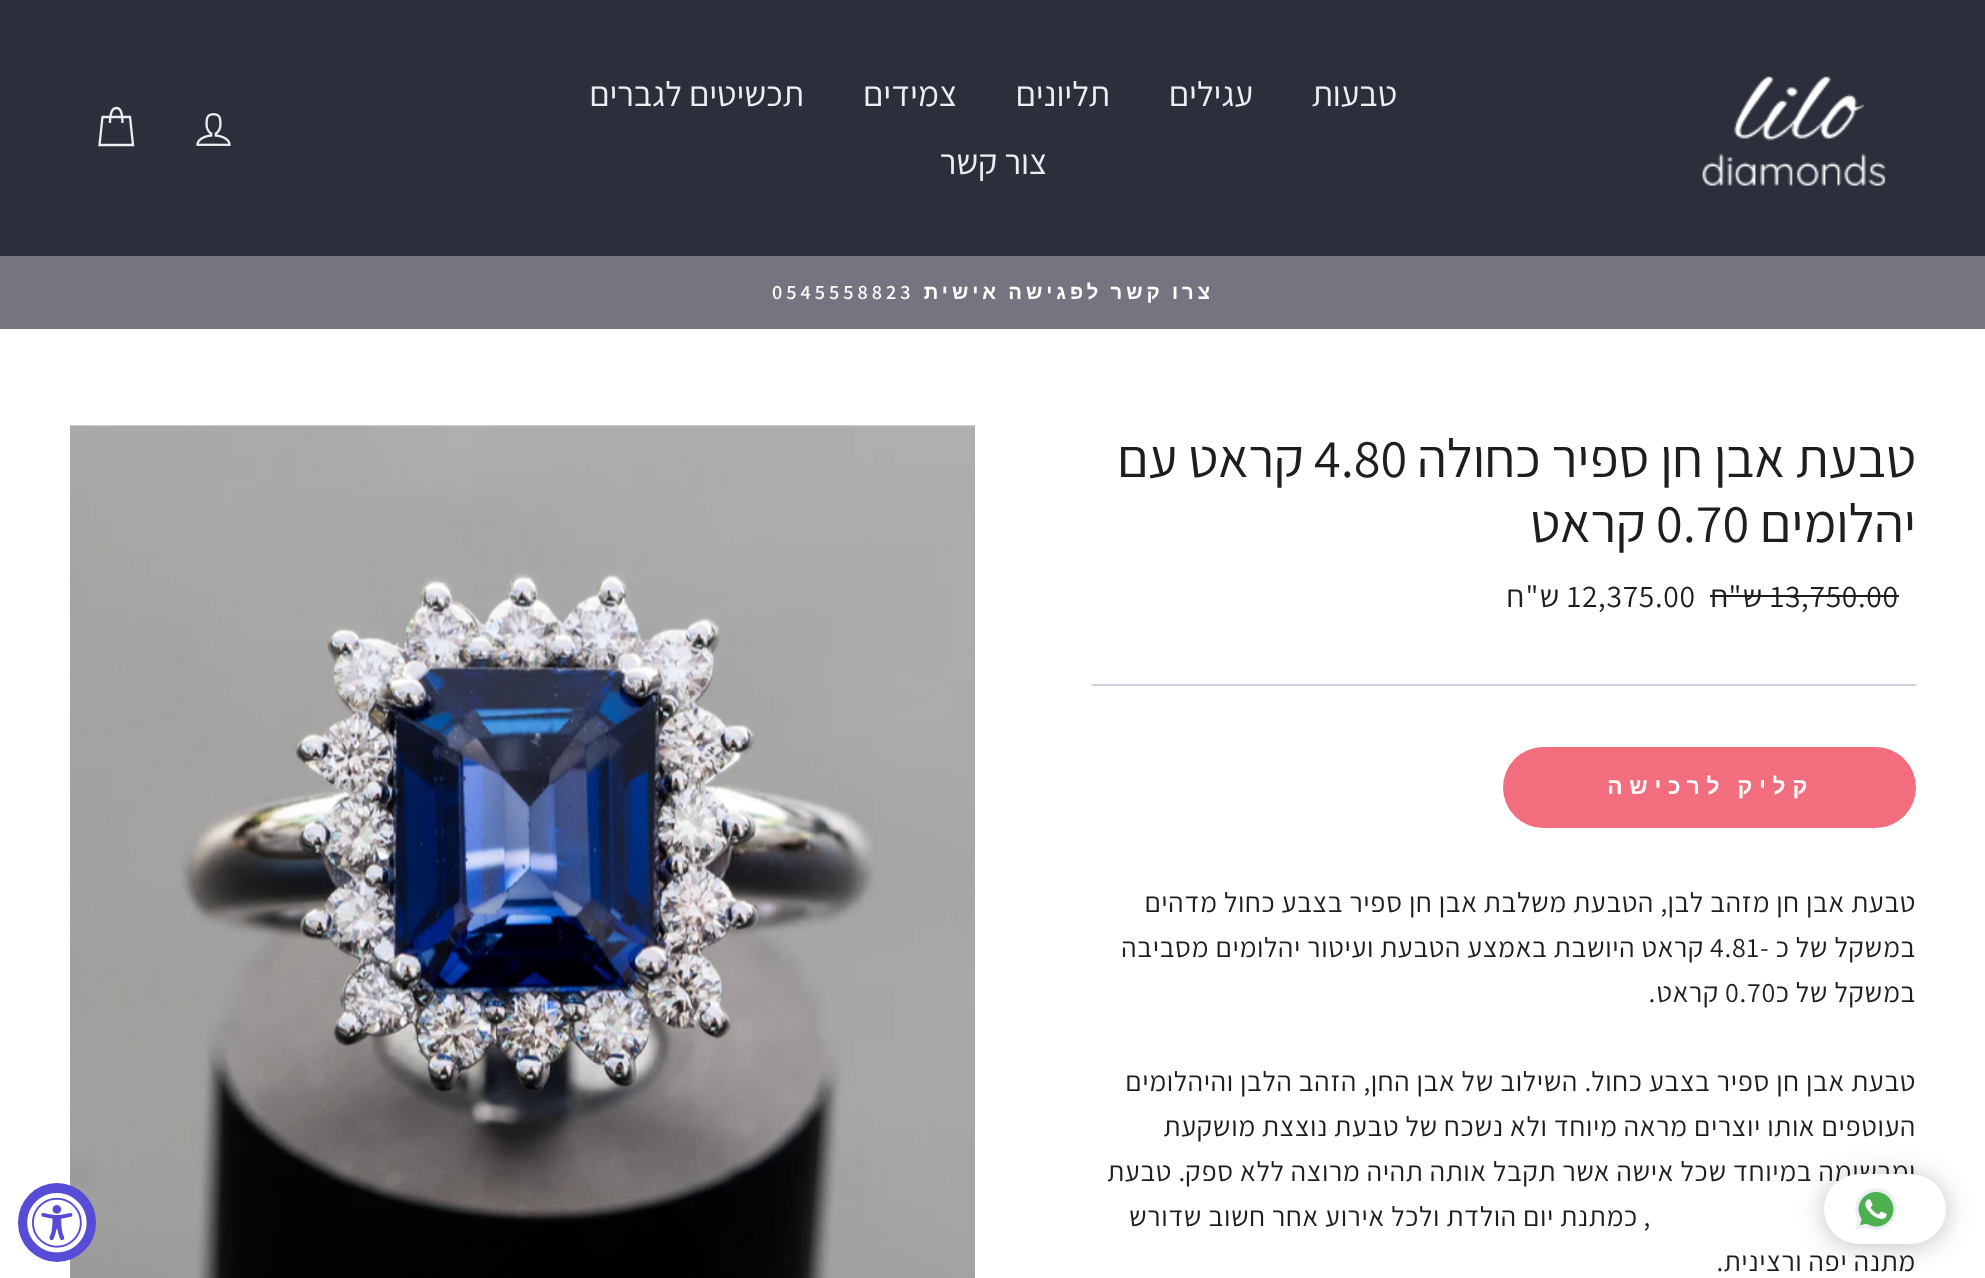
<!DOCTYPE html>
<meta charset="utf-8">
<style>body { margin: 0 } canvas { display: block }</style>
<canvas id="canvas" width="1985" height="1278"></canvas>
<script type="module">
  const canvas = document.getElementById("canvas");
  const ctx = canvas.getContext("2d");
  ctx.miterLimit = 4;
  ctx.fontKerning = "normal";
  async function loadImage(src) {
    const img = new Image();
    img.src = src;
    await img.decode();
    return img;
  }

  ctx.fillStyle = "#ffffff";
  ctx.fillRect(0, 0, 1985, 1278);
  ctx.fillStyle = "#2b2f3c";
  ctx.fillRect(0, 0, 1985, 256);
  ctx.drawImage(await loadImage("img1.png"), 1702, 76, 184, 110);
  ctx.direction = "rtl";
  ctx.font = "200 35px Assistant";
  ctx.fillStyle = "#eceef4";
  ctx.fillText("טבעות", 1397, 106);
  ctx.fillText("עגילים", 1253, 106);
  ctx.fillText("תליונים", 1110, 106);
  ctx.fillText("צמידים", 957, 106);
  ctx.fillText("תכשיטים לגברים", 804, 106);
  ctx.fillText("צור קשר", 1047, 174);
  ctx.drawImage(await loadImage("img2.png"), 196, 113, 35, 33);
  ctx.beginPath();
  ctx.moveTo(110, 123);
  ctx.bezierCurveTo(110, 111, 113, 108, 116.5, 108);
  ctx.bezierCurveTo(119.5, 108, 122.5, 111, 122.5, 123);
  ctx.moveTo(102.5, 117);
  ctx.lineTo(130, 117);
  ctx.lineTo(133, 145);
  ctx.lineTo(99.5, 145);
  ctx.closePath();
  ctx.strokeStyle = "#eceef4";
  ctx.lineWidth = 2.3;
  ctx.stroke();
  ctx.fillStyle = "#757481";
  ctx.fillRect(0, 256, 1985, 73);
  ctx.letterSpacing = "4px";
  ctx.wordSpacing = "-1.5px";
  ctx.font = "bold 20.25px Liberation Sans";
  ctx.fillStyle = "#ffffff";
  ctx.fillText("צרו קשר לפגישה אישית", 1214, 299);
  ctx.wordSpacing = "0px";
  ctx.direction = "ltr";
  ctx.font = "600 20.25px Assistant";
  ctx.fillText("0545558823", 772, 299);
  ctx.letterSpacing = "0px";
  ctx.direction = "rtl";
  ctx.font = "200 54.25px Assistant";
  ctx.fillStyle = "#1e1e1e";
  ctx.fillText("טבעת אבן חן ספיר כחולה", 1916, 477);
  ctx.direction = "ltr";
  ctx.font = "54.25px Assistant";
  ctx.fillText("4.80", 1314, 477);
  ctx.direction = "rtl";
  ctx.font = "200 54.25px Assistant";
  ctx.fillText("קראט עם", 1304, 477);
  ctx.fillText("יהלומים", 1916, 542);
  ctx.direction = "ltr";
  ctx.font = "54.25px Assistant";
  ctx.fillText("0.70", 1656, 542);
  ctx.direction = "rtl";
  ctx.font = "200 54.25px Assistant";
  ctx.fillText("קראט", 1646, 542);
  ctx.letterSpacing = "0.7px";
  ctx.direction = "ltr";
  ctx.font = "31.5px Assistant";
  ctx.fillText("13,750.00", 1770, 607);
  ctx.fillStyle = "#1c1d1d";
  ctx.fillRect(1769, 595, 130, 2);
  ctx.direction = "rtl";
  ctx.font = "200 31.5px Assistant";
  ctx.fillStyle = "#1e1e1e";
  ctx.fillText("ש", 1763, 607);
  ctx.font = "31.5px Assistant";
  ctx.fillText("\"", 1742, 607);
  ctx.font = "200 31.5px Assistant";
  ctx.fillText("ח", 1729, 607);
  ctx.fillStyle = "#1c1d1d";
  ctx.fillRect(1710, 595, 59, 2);
  ctx.direction = "ltr";
  ctx.font = "31.5px Assistant";
  ctx.fillStyle = "#1e1e1e";
  ctx.fillText("12,375.00", 1567, 607);
  ctx.direction = "rtl";
  ctx.font = "200 31.5px Assistant";
  ctx.fillText("ש", 1560, 607);
  ctx.font = "31.5px Assistant";
  ctx.fillText("\"", 1539, 607);
  ctx.font = "200 31.5px Assistant";
  ctx.fillText("ח", 1525, 607);
  ctx.fillStyle = "#c9d0e1";
  ctx.fillRect(1092, 684, 824, 2);
  ctx.fillStyle = "#f26e7e";
  ctx.beginPath();
  ctx.roundRect(1503, 747, 413, 81, 40.5);
  ctx.fill();
  ctx.letterSpacing = "6.75px";
  ctx.wordSpacing = "-2px";
  ctx.font = "bold 22.75px Liberation Sans";
  ctx.fillStyle = "#ffffff";
  ctx.fillText("קליק לרכישה", 1814, 794);
  ctx.letterSpacing = "0.7px";
  ctx.wordSpacing = "0px";
  ctx.font = "200 28px Assistant";
  ctx.fillStyle = "#1e1e1e";
  ctx.fillText("טבעת אבן חן מזהב לבן", 1916, 912);
  ctx.font = "28px Assistant";
  ctx.fillText(",", 1668, 912);
  ctx.font = "200 28px Assistant";
  ctx.fillText("הטבעת משלבת אבן חן ספיר בצבע כחול מדהים", 1654, 912);
  ctx.fillText("במשקל של כ -", 1916, 957);
  ctx.direction = "ltr";
  ctx.font = "28px Assistant";
  ctx.fillText("4.81", 1710, 957);
  ctx.direction = "rtl";
  ctx.font = "200 28px Assistant";
  ctx.fillText("קראט היושבת באמצע הטבעת ועיטור יהלומים מסביבה", 1704, 957);
  ctx.fillText("במשקל של כ", 1916, 1002);
  ctx.direction = "ltr";
  ctx.font = "28px Assistant";
  ctx.fillText("0.70", 1725, 1002);
  ctx.direction = "rtl";
  ctx.font = "200 28px Assistant";
  ctx.fillText("קראט", 1719, 1002);
  ctx.font = "28px Assistant";
  ctx.fillText(".", 1656, 1002);
  ctx.font = "200 28px Assistant";
  ctx.fillText("טבעת אבן חן ספיר בצבע כחול", 1916, 1091);
  ctx.font = "28px Assistant";
  ctx.fillText(".", 1592, 1091);
  ctx.font = "200 28px Assistant";
  ctx.fillText("השילוב של אבן החן", 1578, 1091);
  ctx.font = "28px Assistant";
  ctx.fillText(",", 1371, 1091);
  ctx.font = "200 28px Assistant";
  ctx.fillText("הזהב הלבן והיהלומים", 1357, 1091);
  ctx.fillText("העוטפים אותו יוצרים מראה מיוחד ולא נשכח של טבעת נוצצת מושקעת", 1916, 1136);
  ctx.fillText("ומרשימה במיוחד שכל אישה אשר תקבל אותה תהיה מרוצה ללא ספק", 1916, 1181);
  ctx.font = "28px Assistant";
  ctx.fillText(".", 1186, 1181);
  ctx.font = "200 28px Assistant";
  ctx.fillText("טבעת", 1172, 1181);
  ctx.font = "28px Assistant";
  ctx.fillText(",", 1651, 1226);
  ctx.font = "200 28px Assistant";
  ctx.fillText("כמתנת יום הולדת ולכל אירוע אחר חשוב שדורש", 1638, 1226);
  ctx.fillText("מתנה יפה ורצינית", 1916, 1271);
  ctx.font = "28px Assistant";
  ctx.fillText(".", 1724, 1271);
  ctx.drawImage(await loadImage("img3.png"), 70, 425, 905, 853);
  ctx.fillStyle = "rgba(32, 33, 36, 0.28)";
  ctx.filter = "blur(13px)";
  ctx.beginPath();
  ctx.roundRect(1824, 1176, 122, 70, 35);
  ctx.fill();
  ctx.filter = "none";
  ctx.fillStyle = "#ffffff";
  ctx.beginPath();
  ctx.roundRect(1824, 1174, 122, 70, 35);
  ctx.fill();
  ctx.drawImage(await loadImage("img4.png"), 1855, 1188, 42, 42);
  ctx.fillStyle = "#574cd5";
  ctx.beginPath();
  ctx.roundRect(18, 1183, 78, 79, 39);
  ctx.fill();
  ctx.drawImage(await loadImage("img5.png"), 27, 1193, 60, 60);
</script>
